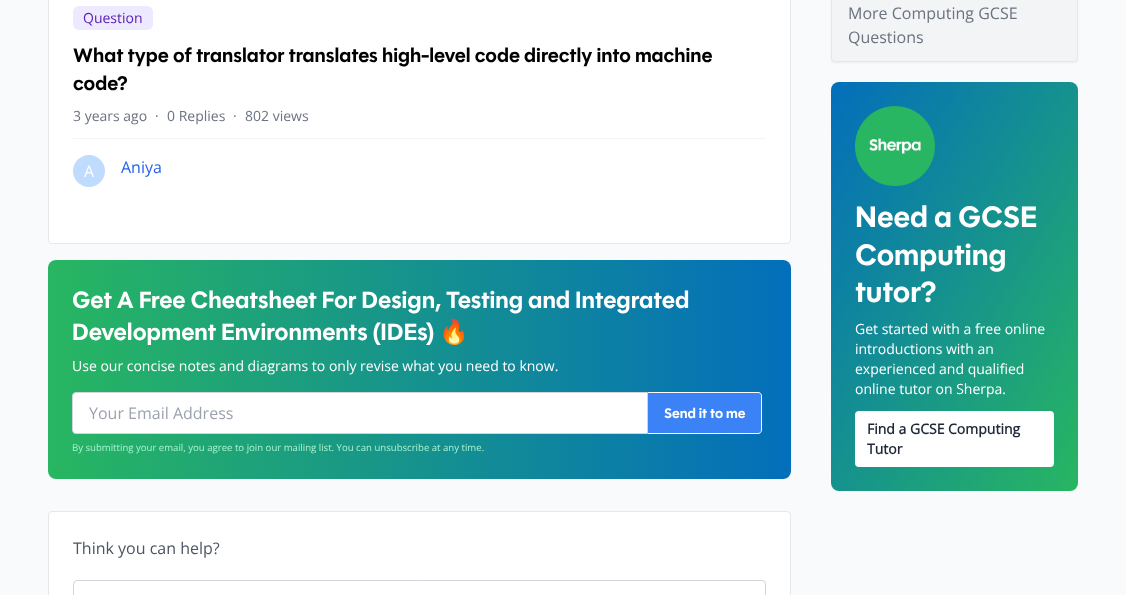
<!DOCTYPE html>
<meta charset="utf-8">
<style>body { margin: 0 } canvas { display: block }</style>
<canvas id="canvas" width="1126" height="595"></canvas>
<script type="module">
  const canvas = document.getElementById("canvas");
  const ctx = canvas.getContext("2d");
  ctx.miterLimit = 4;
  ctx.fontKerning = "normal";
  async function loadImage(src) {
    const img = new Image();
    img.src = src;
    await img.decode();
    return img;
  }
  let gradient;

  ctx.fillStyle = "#f9fafb";
  ctx.fillRect(0, 0, 1126, 595);
  ctx.fillStyle = "#ffffff";
  ctx.beginPath();
  ctx.roundRect(48.5, -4.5, 742, 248, 3.5);
  ctx.fill();
  ctx.strokeStyle = "#e5e7eb";
  ctx.stroke();
  ctx.fillStyle = "#ede9fe";
  ctx.beginPath();
  ctx.roundRect(73, 6, 80, 24, 6);
  ctx.fill();
  ctx.font = "14px Open Sans";
  ctx.fillStyle = "#5b21b6";
  ctx.fillText("Question", 83, 23);
  ctx.font = "bold 20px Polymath";
  ctx.fillStyle = "#000000";
  ctx.fillText("What type of translator translates high-level code directly into machine", 73, 62);
  ctx.fillText("code?", 73, 90);
  ctx.fillStyle = "#f3f4f6";
  ctx.fillRect(73, 138, 693, 1);
  ctx.font = "14px Open Sans";
  ctx.fillStyle = "#6b7280";
  ctx.fillText("3 years ago", 73, 121);
  ctx.fillText("·", 155, 121);
  ctx.fillText("0 Replies", 167, 121);
  ctx.fillText("·", 233, 121);
  ctx.fillText("802 views", 245, 121);
  ctx.fillStyle = "#bfdbfe";
  ctx.beginPath();
  ctx.arc(89, 171, 16, 0, Math.PI * 2);
  ctx.fill();
  ctx.font = "16px Open Sans";
  ctx.fillStyle = "#ffffff";
  ctx.fillText("A", 84, 177);
  ctx.fillStyle = "#2563eb";
  ctx.fillText("Aniya", 121, 173);
  gradient = ctx.createLinearGradient(48, 370, 791, 370);
  gradient.addColorStop(0, "#28b661");
  gradient.addColorStop(1, "#036ebb");
  ctx.fillStyle = gradient;
  ctx.beginPath();
  ctx.roundRect(48, 260, 743, 219, 8);
  ctx.fill();
  ctx.font = "bold 24px Polymath";
  ctx.fillStyle = "#ffffff";
  ctx.fillText("Get A Free Cheatsheet For Design, Testing and Integrated", 72, 308);
  ctx.fillText("Development Environments (IDEs)", 72, 340);
  ctx.font = "bold 24px Noto Color Emoji";
  ctx.fillText("🔥", 439, 340);
  ctx.font = "14px Open Sans";
  ctx.fillText("Use our concise notes and diagrams to only revise what you need to know.", 72, 371);
  ctx.beginPath();
  ctx.roundRect(72.5, 392.5, 575, 41, [3.5, 0, 0, 3.5]);
  ctx.fill();
  ctx.strokeStyle = "#d1d5db";
  ctx.stroke();
  ctx.font = "16px Open Sans";
  ctx.fillStyle = "#9ca3af";
  ctx.fillText("Your Email Address", 89, 419);
  ctx.fillStyle = "#3b82f6";
  ctx.beginPath();
  ctx.roundRect(648, 393, 113, 40, [0, 3, 3, 0]);
  ctx.fill();
  ctx.fillStyle = "#ffffff";
  ctx.beginPath();
  ctx.moveTo(648, 392);
  ctx.lineTo(758, 392);
  ctx.bezierCurveTo(760, 392, 762, 394, 762, 396);
  ctx.lineTo(762, 430);
  ctx.bezierCurveTo(762, 432, 760, 434, 758, 434);
  ctx.lineTo(648, 434);
  ctx.closePath();
  ctx.moveTo(648, 393);
  ctx.lineTo(758, 393);
  ctx.bezierCurveTo(760, 393, 761, 394, 761, 396);
  ctx.lineTo(761, 430);
  ctx.bezierCurveTo(761, 432, 760, 433, 758, 433);
  ctx.lineTo(648, 433);
  ctx.closePath();
  ctx.fill("evenodd");
  ctx.font = "bold 14px Polymath";
  ctx.fillText("Send it to me", 664, 418);
  ctx.font = "9.6px Open Sans";
  ctx.fillStyle = "#a7f3d0";
  ctx.fillText("By submitting your email, you agree to join our mailing list. You can unsubscribe at any time.", 72, 451);
  ctx.fillStyle = "#ffffff";
  ctx.beginPath();
  ctx.roundRect(48.5, 511.5, 742, 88, 3.5);
  ctx.fill();
  ctx.strokeStyle = "#e5e7eb";
  ctx.stroke();
  ctx.font = "16px Open Sans";
  ctx.fillStyle = "#4b5563";
  ctx.fillText("Think you can help?", 73, 554);
  ctx.beginPath();
  ctx.roundRect(73.5, 580.5, 692, 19, 3.5);
  ctx.strokeStyle = "#d1d5db";
  ctx.stroke();
  ctx.fillStyle = "rgba(0, 0, 0, 0.05)";
  ctx.filter = "blur(1px)";
  ctx.beginPath();
  ctx.roundRect(831, -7, 247, 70, 4);
  ctx.fill();
  ctx.filter = "none";
  ctx.fillStyle = "#f3f4f6";
  ctx.beginPath();
  ctx.roundRect(831.5, -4.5, 246, 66, 3.5);
  ctx.fill();
  ctx.strokeStyle = "#e5e7eb";
  ctx.stroke();
  ctx.fillStyle = "#6b7280";
  ctx.fillText("More Computing GCSE", 848, 19);
  ctx.fillText("Questions", 848, 43);
  gradient = ctx.createLinearGradient(774, 177, 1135, 396);
  gradient.addColorStop(0, "#036ebb");
  gradient.addColorStop(1, "#28b661");
  ctx.fillStyle = gradient;
  ctx.beginPath();
  ctx.roundRect(831, 82, 247, 409, 8);
  ctx.fill();
  ctx.drawImage(await loadImage("img1.png"), 855, 106, 80, 80);
  ctx.font = "bold 30px Polymath";
  ctx.fillStyle = "#ffffff";
  ctx.fillText("Need a GCSE", 855, 227);
  ctx.fillText("Computing", 855, 265);
  ctx.fillText("tutor?", 855, 302);
  ctx.font = "14px Open Sans";
  ctx.fillText("Get started with a free online", 855, 334);
  ctx.fillText("introductions with an", 855, 354);
  ctx.fillText("experienced and qualified", 855, 374);
  ctx.fillText("online tutor on Sherpa.", 855, 394);
  ctx.beginPath();
  ctx.roundRect(855, 411, 199, 56, 4);
  ctx.fill();
  ctx.font = "bold 14px Open Sans";
  ctx.fillStyle = "#1f2937";
  ctx.fillText("Find a GCSE Computing", 867, 434);
  ctx.fillText("Tutor", 867, 454);
</script>
